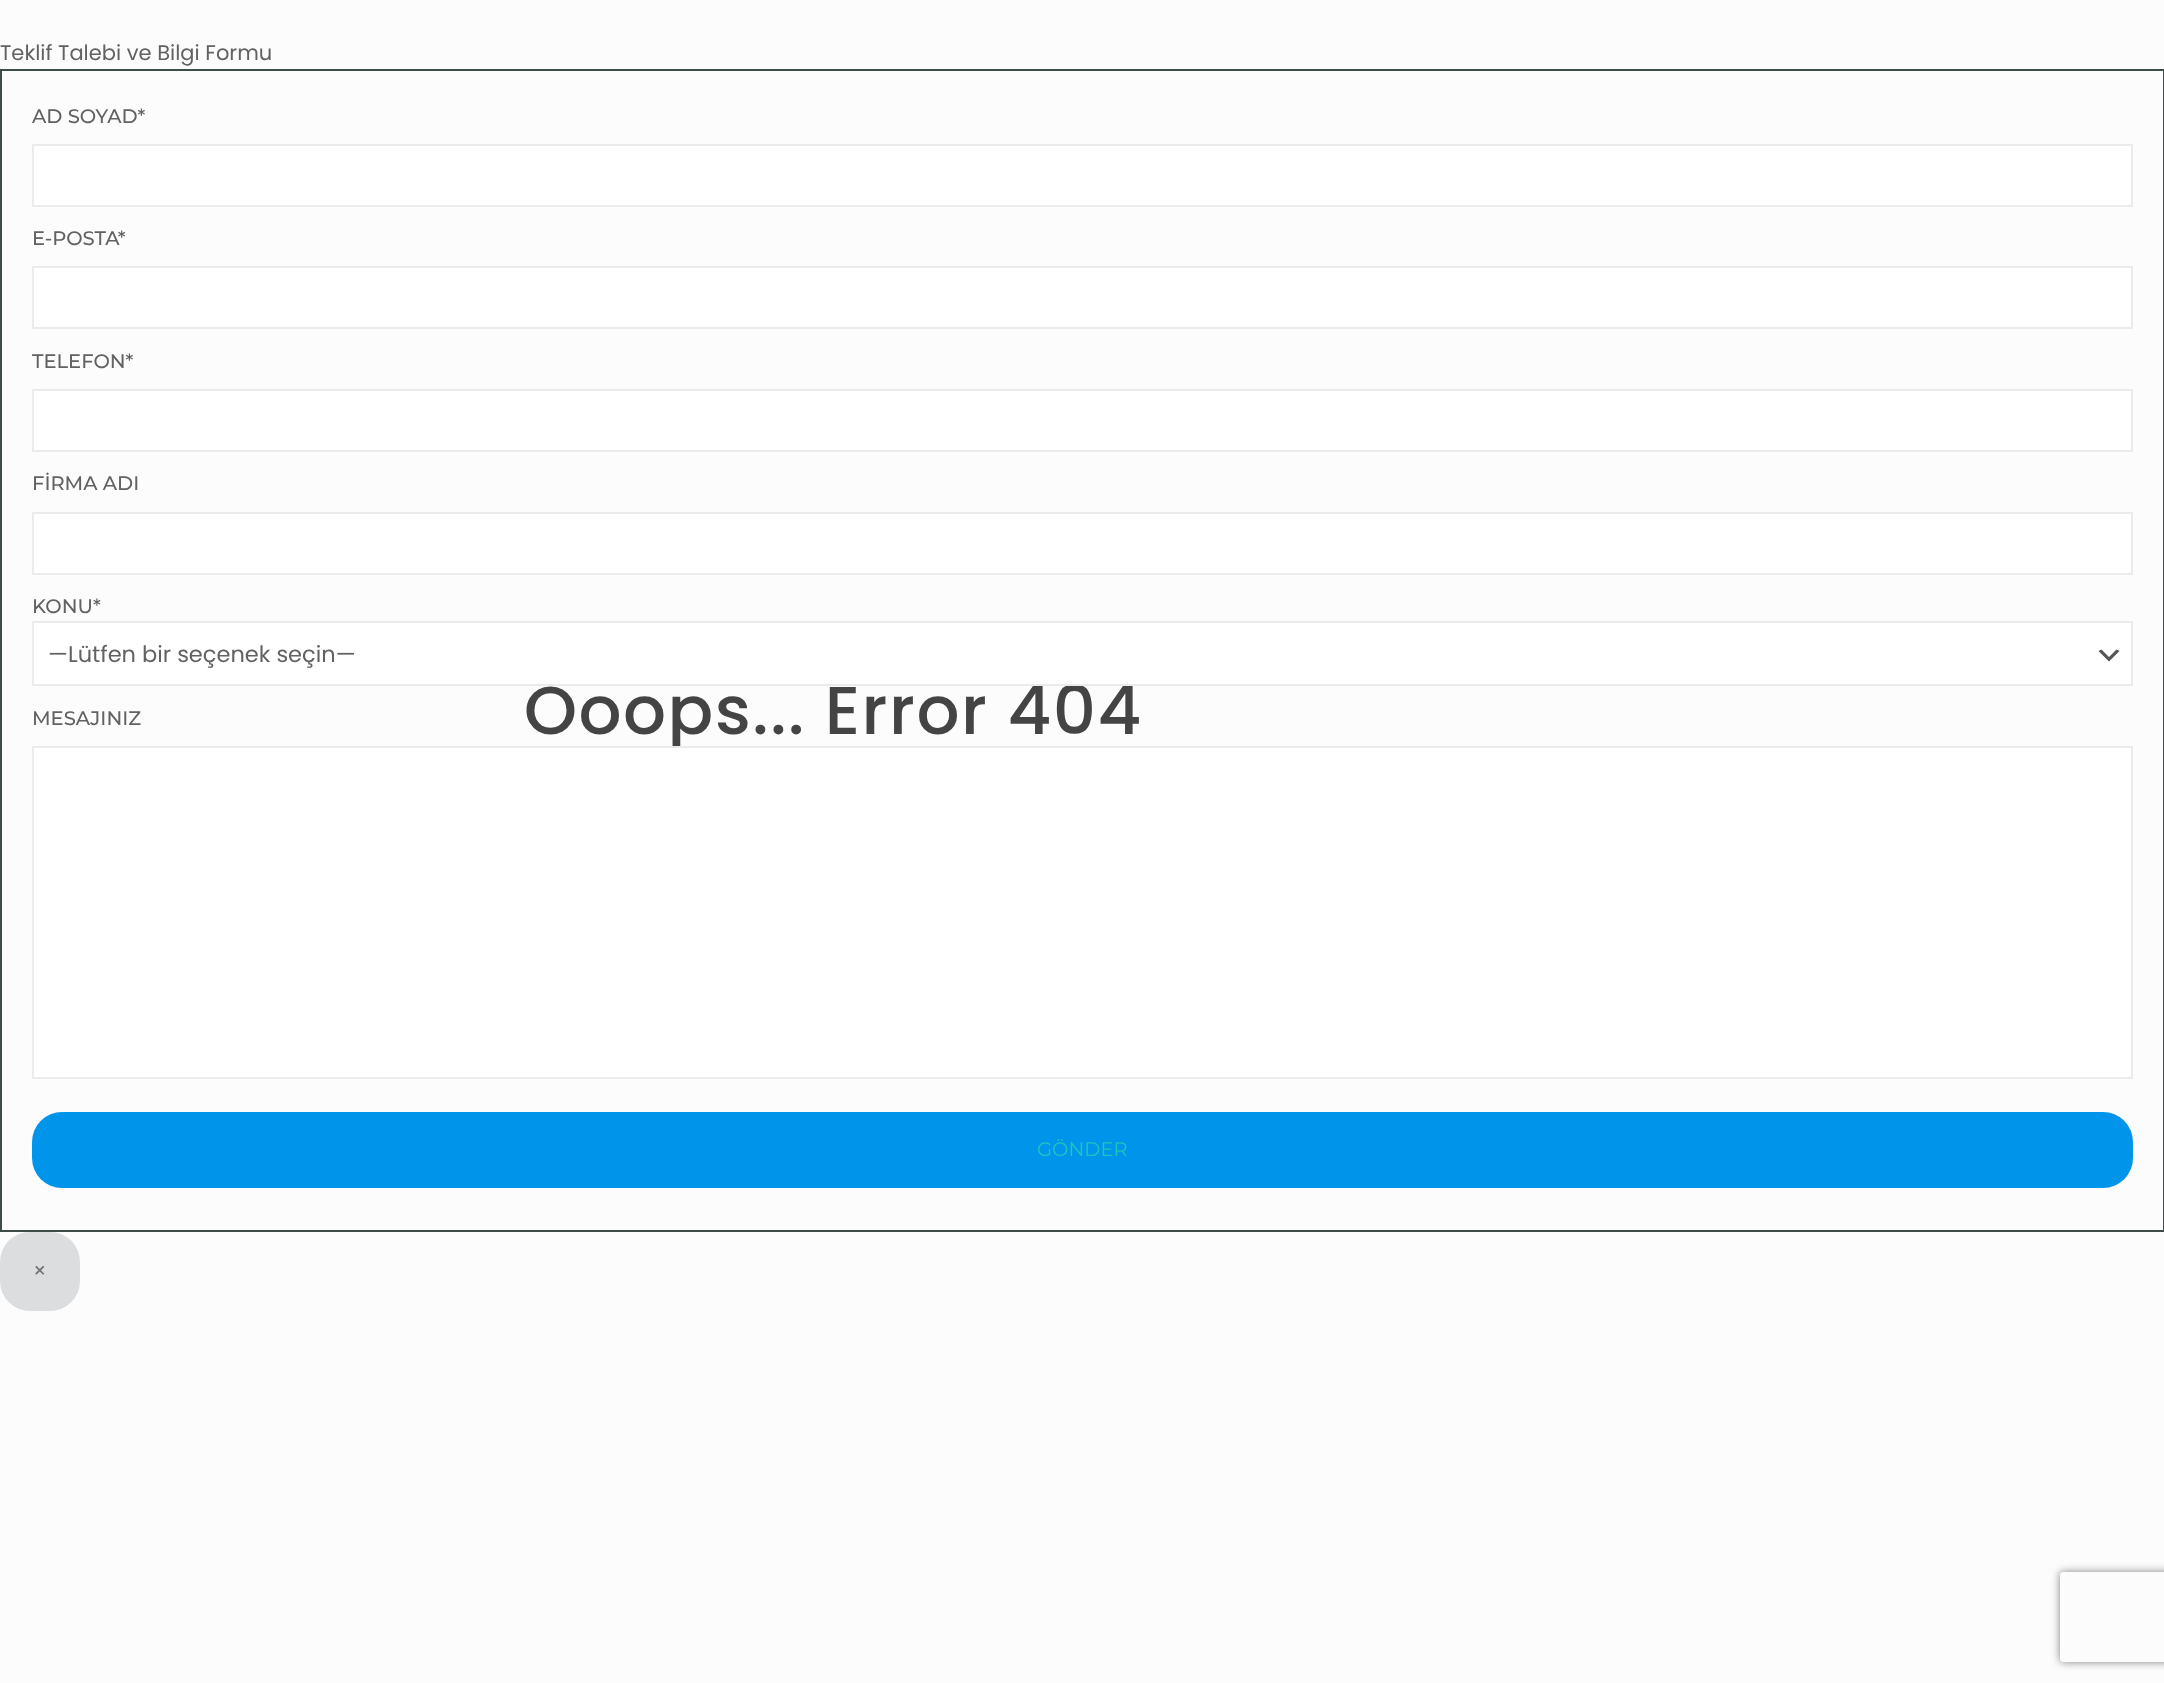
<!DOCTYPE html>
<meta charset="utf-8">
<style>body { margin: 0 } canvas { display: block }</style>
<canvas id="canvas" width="2164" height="1683"></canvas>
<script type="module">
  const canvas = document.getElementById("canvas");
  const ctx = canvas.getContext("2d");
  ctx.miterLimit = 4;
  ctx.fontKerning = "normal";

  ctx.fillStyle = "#fcfcfc";
  ctx.fillRect(0, 0, 2164, 1683);
  ctx.font = "21px Poppins";
  ctx.fillStyle = "#626262";
  ctx.fillText("Teklif Talebi ve Bilgi Formu", 0, 60);
  ctx.strokeStyle = "#3e4c4a";
  ctx.lineWidth = 2;
  ctx.strokeRect(1, 70, 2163, 1161);
  ctx.font = "500 19.5px Montserrat";
  ctx.fillText("AD SOYAD*", 32, 123);
  ctx.fillStyle = "#ffffff";
  ctx.beginPath();
  ctx.rect(33, 145, 2099, 61);
  ctx.fill();
  ctx.strokeStyle = "#ebebeb";
  ctx.stroke();
  ctx.fillStyle = "#626262";
  ctx.fillText("E-POSTA*", 32, 245);
  ctx.fillStyle = "#ffffff";
  ctx.beginPath();
  ctx.rect(33, 267, 2099, 61);
  ctx.fill();
  ctx.stroke();
  ctx.fillStyle = "#626262";
  ctx.fillText("TELEFON*", 32, 368);
  ctx.fillStyle = "#ffffff";
  ctx.beginPath();
  ctx.rect(33, 390, 2099, 61);
  ctx.fill();
  ctx.stroke();
  ctx.fillStyle = "#626262";
  ctx.fillText("FİRMA ADI", 32, 490);
  ctx.fillStyle = "#ffffff";
  ctx.beginPath();
  ctx.rect(33, 513, 2099, 61);
  ctx.fill();
  ctx.stroke();
  ctx.fillStyle = "#626262";
  ctx.fillText("KONU*", 32, 613);
  ctx.letterSpacing = "1.5px";
  ctx.font = "500 67.5px Poppins";
  ctx.fillStyle = "#444444";
  ctx.fillText("Ooops... Error 404", 524, 734);
  ctx.fillStyle = "#ffffff";
  ctx.fillRect(34, 623, 2097, 61);
  ctx.fillStyle = "#555555";
  ctx.beginPath();
  ctx.moveTo(2101.5, 649.5);
  ctx.lineTo(2109, 657);
  ctx.lineTo(2116.5, 649.5);
  ctx.lineTo(2119.5, 651);
  ctx.lineTo(2109, 661.5);
  ctx.lineTo(2098.5, 651);
  ctx.closePath();
  ctx.fill();
  ctx.strokeRect(33, 622, 2099, 63);
  ctx.letterSpacing = "0px";
  ctx.font = "22.5px Poppins";
  ctx.fillStyle = "#626262";
  ctx.fillText("—Lütfen bir seçenek seçin—", 48, 662);
  ctx.font = "500 19.5px Montserrat";
  ctx.fillText("MESAJINIZ", 32, 725);
  ctx.fillStyle = "#ffffff";
  ctx.beginPath();
  ctx.rect(33, 747, 2099, 331);
  ctx.fill();
  ctx.stroke();
  ctx.fillStyle = "#0095eb";
  ctx.beginPath();
  ctx.roundRect(32, 1112, 2101, 76, 30);
  ctx.fill();
  ctx.font = "19.5px Montserrat";
  ctx.fillStyle = "#1dc6bc";
  ctx.fillText("GÖNDER", 1037, 1156);
  ctx.fillStyle = "#dbdddf";
  ctx.beginPath();
  ctx.roundRect(0, 1232, 80, 79, 30);
  ctx.fill();
  ctx.font = "21px Poppins";
  ctx.fillStyle = "#747474";
  ctx.fillText("×", 33, 1278);
  ctx.save();
  ctx.beginPath();
  ctx.moveTo(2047, 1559);
  ctx.lineTo(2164, 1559);
  ctx.lineTo(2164, 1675);
  ctx.lineTo(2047, 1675);
  ctx.closePath();
  ctx.moveTo(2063, 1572);
  ctx.lineTo(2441, 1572);
  ctx.bezierCurveTo(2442.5, 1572, 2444, 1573.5, 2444, 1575);
  ctx.lineTo(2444, 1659);
  ctx.bezierCurveTo(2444, 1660.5, 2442.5, 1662, 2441, 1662);
  ctx.lineTo(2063, 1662);
  ctx.bezierCurveTo(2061.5, 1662, 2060, 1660.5, 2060, 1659);
  ctx.lineTo(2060, 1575);
  ctx.bezierCurveTo(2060, 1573.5, 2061.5, 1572, 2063, 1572);
  ctx.closePath();
  ctx.clip("evenodd");
  ctx.fillStyle = "#808080";
  ctx.filter = "blur(4px)";
  ctx.beginPath();
  ctx.roundRect(2060, 1572, 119, 90, 3);
  ctx.fill();
  ctx.filter = "none";
  ctx.restore();
</script>
